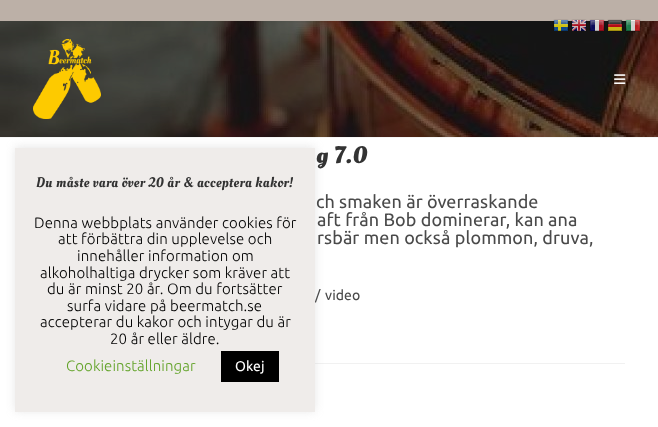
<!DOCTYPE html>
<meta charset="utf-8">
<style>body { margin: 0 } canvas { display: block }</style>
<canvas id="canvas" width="658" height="427"></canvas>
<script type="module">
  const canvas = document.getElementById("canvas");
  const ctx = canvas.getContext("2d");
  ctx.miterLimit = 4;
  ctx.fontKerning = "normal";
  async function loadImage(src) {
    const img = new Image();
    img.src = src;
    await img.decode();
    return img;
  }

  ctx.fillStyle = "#ffffff";
  ctx.fillRect(0, 0, 658, 427);
  ctx.fillStyle = "#bcb0a7";
  ctx.fillRect(0, 0, 658, 21);
  ctx.drawImage(await loadImage("img6.png"), 0, 21, 658, 116);
  ctx.drawImage(await loadImage("img1.png"), 553, 19, 16, 12);
  ctx.drawImage(await loadImage("img2.png"), 571, 19, 16, 12);
  ctx.drawImage(await loadImage("img3.png"), 589, 19, 16, 12);
  ctx.drawImage(await loadImage("img4.png"), 607, 19, 16, 13);
  ctx.drawImage(await loadImage("img5.png"), 625, 19, 16, 13);
  ctx.fillStyle = "#f5f5f5";
  ctx.fillRect(0, 137, 658, 1);
  ctx.fillStyle = "#f1f1f1";
  ctx.fillRect(315, 363, 310, 1);
  ctx.fillStyle = "rgba(172, 171, 171, 0.3)";
  ctx.filter = "blur(5px)";
  ctx.beginPath();
  ctx.rect(15, 147, 300, 264);
  ctx.fill();
  ctx.filter = "none";
  ctx.letterSpacing = "0.1px";
  ctx.font = "14px Ubuntu";
  ctx.fillStyle = "#4a4a4a";
  ctx.fillText("/", 315, 300);
  ctx.fillStyle = "#efecea";
  ctx.fillRect(15, 148, 300, 264);
  ctx.letterSpacing = "0.4px";
  ctx.font = "14px Oleo Script";
  ctx.fillStyle = "#333333";
  ctx.fillText("Du måste vara över 20 år & acceptera kakor!", 36, 187);
  ctx.letterSpacing = "0.1px";
  ctx.font = "300 15px Ubuntu";
  ctx.fillStyle = "#000000";
  ctx.fillText("Denna webbplats använder cookies för", 34, 228);
  ctx.fillText("att förbättra din upplevelse och", 58, 244);
  ctx.fillText("innehåller information om", 77, 261);
  ctx.fillText("alkoholhaltiga drycker som kräver att", 40, 278);
  ctx.fillText("du är minst 20 år. Om du fortsätter", 47, 294);
  ctx.fillText("surfa vidare på beermatch.se", 67, 311);
  ctx.fillText("accepterar du kakor och intygar du är", 40, 327);
  ctx.fillText("20 år eller äldre.", 110, 344);
  ctx.fillStyle = "#62a329";
  ctx.fillText("Cookieinställningar", 66, 371);
  ctx.fillStyle = "#000000";
  ctx.fillRect(221, 351, 58, 31);
  ctx.font = "14px Ubuntu";
  ctx.fillStyle = "#ffffff";
  ctx.fillText("Okej", 235, 371);
  ctx.drawImage(await loadImage("img7.png"), 33, 39, 68, 80);
  ctx.drawImage(await loadImage("img8.png"), 614, 74, 12, 10);
  ctx.letterSpacing = "0.5px";
  ctx.font = "bold 24px Oleo Script";
  ctx.fillStyle = "#333333";
  ctx.fillText("g 7.0", 316, 163);
  ctx.letterSpacing = "0.1px";
  ctx.font = "18px Ubuntu";
  ctx.fillStyle = "#4a4a4a";
  ctx.fillText("ch smaken är överraskande", 316, 208);
  ctx.fillText("aft från Bob dominerar, kan ana", 317, 226);
  ctx.fillText("rsbär men också plommon, druva,", 317, 244);
  ctx.font = "14px Ubuntu";
  ctx.fillText("video", 325, 300);
</script>
